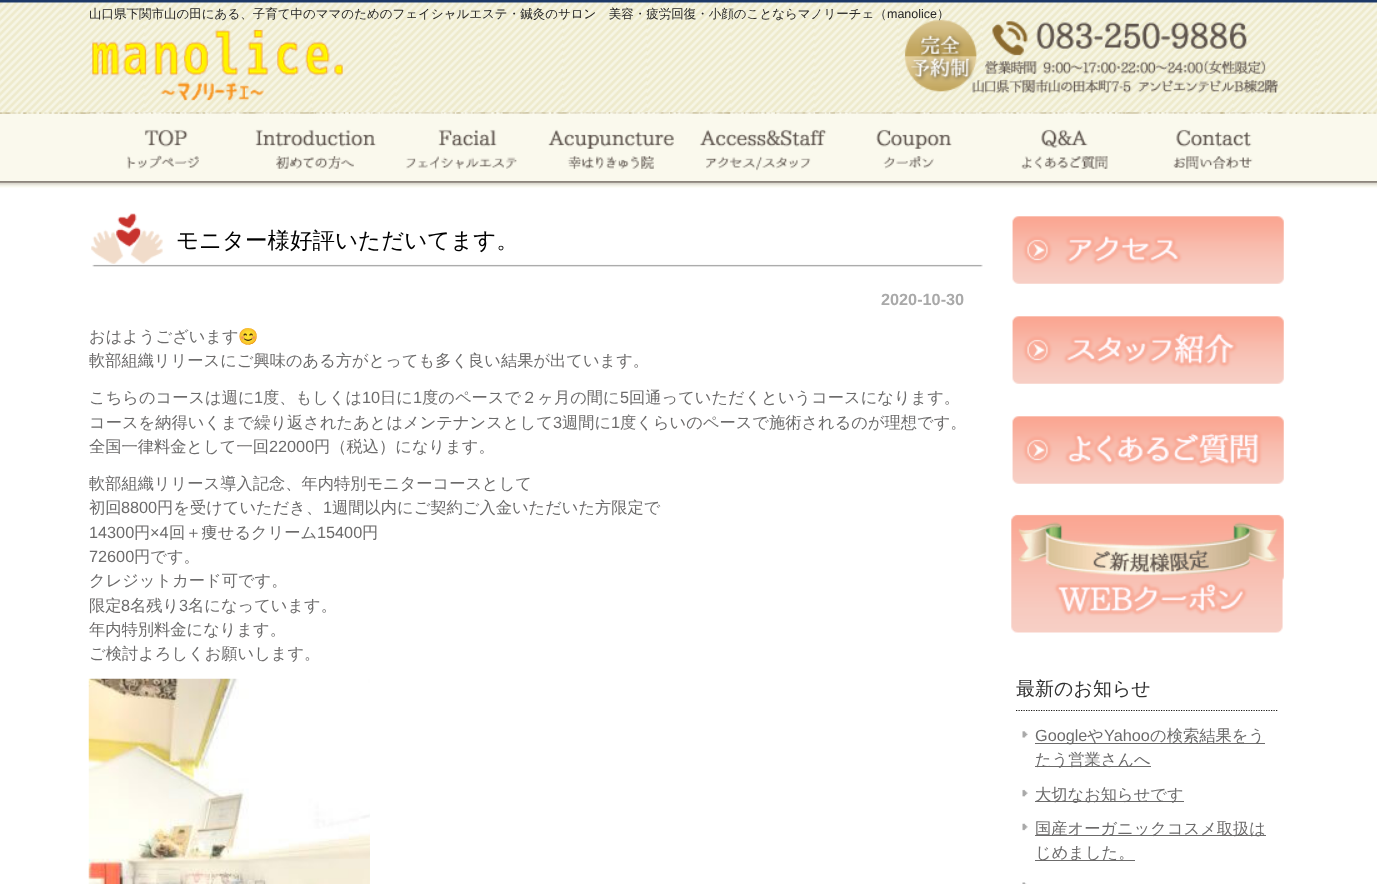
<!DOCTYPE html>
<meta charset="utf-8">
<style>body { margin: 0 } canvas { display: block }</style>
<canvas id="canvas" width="1377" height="884"></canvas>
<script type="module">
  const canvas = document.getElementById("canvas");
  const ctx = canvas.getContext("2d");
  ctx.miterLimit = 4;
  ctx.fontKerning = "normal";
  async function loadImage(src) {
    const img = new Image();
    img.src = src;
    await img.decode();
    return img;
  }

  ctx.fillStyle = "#ffffff";
  ctx.fillRect(0, 0, 1377, 884);
  ctx.drawImage(await loadImage("img1.png"), 0, 0, 1377, 188);
  ctx.font = "500 12.5px WenQuanYi Zen Hei";
  ctx.fillStyle = "#252525";
  ctx.fillText("山口県下関市山の田にある、子育て中のママのためのフェイシャルエステ・鍼灸のサロン　美容・疲労回復・小顔のことならマノリーチェ（", 89, 18);
  ctx.font = "12.5px Liberation Sans";
  ctx.fillText("manolice", 887, 18);
  ctx.drawImage(await loadImage("img3.png"), 904, 19, 374, 74);
  ctx.font = "500 12.5px WenQuanYi Zen Hei";
  ctx.fillText("）", 937, 18);
  ctx.drawImage(await loadImage("img2.png"), 92, 29, 251, 72);
  ctx.drawImage(await loadImage("img4.png"), 89, 112, 1200, 59);
  ctx.drawImage(await loadImage("img5.png"), 90, 112, 149, 1);
  ctx.drawImage(await loadImage("img6.png"), 239, 112, 150, 57);
  ctx.drawImage(await loadImage("img7.png"), 392, 112, 146, 52);
  ctx.drawImage(await loadImage("img8.png"), 539, 112, 149, 56);
  ctx.drawImage(await loadImage("img9.png"), 691, 112, 147, 1);
  ctx.drawImage(await loadImage("img10.png"), 839, 112, 150, 52);
  ctx.drawImage(await loadImage("img11.png"), 990, 112, 149, 2);
  ctx.drawImage(await loadImage("img12.png"), 1138, 112, 151, 2);
  ctx.drawImage(await loadImage("img13.png"), 91, 213, 892, 54);
  ctx.font = "500 22.5px WenQuanYi Zen Hei";
  ctx.fillStyle = "#000000";
  ctx.fillText("モニター様好評いただいてます。", 176, 248);
  ctx.font = "bold 16.25px Liberation Sans";
  ctx.fillStyle = "#a9a9a9";
  ctx.fillText("2020-10-30", 881, 305);
  ctx.font = "500 16.25px WenQuanYi Zen Hei";
  ctx.fillStyle = "#6c6b6b";
  ctx.fillText("おはようございます", 89, 342);
  ctx.font = "16.25px Noto Color Emoji";
  ctx.fillText("😊", 238, 342);
  ctx.font = "500 16.25px WenQuanYi Zen Hei";
  ctx.fillText("軟部組織リリースにご興味のある方がとっても多く良い結果が出ています。", 89, 366);
  ctx.fillText("こちらのコースは週に", 89, 403);
  ctx.font = "16.25px Liberation Sans";
  ctx.fillText("1", 254, 403);
  ctx.font = "500 16.25px WenQuanYi Zen Hei";
  ctx.fillText("度、もしくは", 263, 403);
  ctx.font = "16.25px Liberation Sans";
  ctx.fillText("10", 362, 403);
  ctx.font = "500 16.25px WenQuanYi Zen Hei";
  ctx.fillText("日に", 380, 403);
  ctx.font = "16.25px Liberation Sans";
  ctx.fillText("1", 413, 403);
  ctx.font = "500 16.25px WenQuanYi Zen Hei";
  ctx.fillText("度のペースで２ヶ月の間に", 422, 403);
  ctx.font = "16.25px Liberation Sans";
  ctx.fillText("5", 620, 403);
  ctx.font = "500 16.25px WenQuanYi Zen Hei";
  ctx.fillText("回通っていただくというコースになります。", 629, 403);
  ctx.fillText("コースを納得いくまで繰り返されたあとはメンテナンスとして", 89, 428);
  ctx.font = "16.25px Liberation Sans";
  ctx.fillText("3", 553, 428);
  ctx.font = "500 16.25px WenQuanYi Zen Hei";
  ctx.fillText("週間に", 562, 428);
  ctx.font = "16.25px Liberation Sans";
  ctx.fillText("1", 611, 428);
  ctx.font = "500 16.25px WenQuanYi Zen Hei";
  ctx.fillText("度くらいのペースで施術されるのが理想です。", 620, 428);
  ctx.fillText("全国一律料金として一回", 89, 452);
  ctx.font = "16.25px Liberation Sans";
  ctx.fillText("22000", 269, 452);
  ctx.font = "500 16.25px WenQuanYi Zen Hei";
  ctx.fillText("円（税込）になります。", 314, 452);
  ctx.fillText("軟部組織リリース導入記念、年内特別モニターコースとして", 89, 489);
  ctx.fillText("初回", 89, 513);
  ctx.font = "16.25px Liberation Sans";
  ctx.fillText("8800", 121, 513);
  ctx.font = "500 16.25px WenQuanYi Zen Hei";
  ctx.fillText("円を受けていただき、", 157, 513);
  ctx.font = "16.25px Liberation Sans";
  ctx.fillText("1", 323, 513);
  ctx.font = "500 16.25px WenQuanYi Zen Hei";
  ctx.fillText("週間以内にご契約ご入金いただいた方限定で", 332, 513);
  ctx.font = "16.25px Liberation Sans";
  ctx.fillText("14300", 89, 538);
  ctx.font = "500 16.25px WenQuanYi Zen Hei";
  ctx.fillText("円", 134, 538);
  ctx.font = "16.25px Liberation Sans";
  ctx.fillText("×4", 150, 538);
  ctx.font = "500 16.25px WenQuanYi Zen Hei";
  ctx.fillText("回＋痩せるクリーム", 169, 538);
  ctx.font = "16.25px Liberation Sans";
  ctx.fillText("15400", 317, 538);
  ctx.font = "500 16.25px WenQuanYi Zen Hei";
  ctx.fillText("円", 362, 538);
  ctx.font = "16.25px Liberation Sans";
  ctx.fillText("72600", 89, 562);
  ctx.font = "500 16.25px WenQuanYi Zen Hei";
  ctx.fillText("円です。", 134, 562);
  ctx.fillText("クレジットカード可です。", 89, 586);
  ctx.fillText("限定", 89, 611);
  ctx.font = "16.25px Liberation Sans";
  ctx.fillText("8", 121, 611);
  ctx.font = "500 16.25px WenQuanYi Zen Hei";
  ctx.fillText("名残り", 130, 611);
  ctx.font = "16.25px Liberation Sans";
  ctx.fillText("3", 179, 611);
  ctx.font = "500 16.25px WenQuanYi Zen Hei";
  ctx.fillText("名になっています。", 188, 611);
  ctx.fillText("年内特別料金になります。", 89, 635);
  ctx.fillText("ご検討よろしくお願いします。", 89, 659);
  ctx.drawImage(await loadImage("img14.png"), 88, 678, 282, 206);
  ctx.drawImage(await loadImage("img15.png"), 1012, 216, 272, 68);
  ctx.drawImage(await loadImage("img16.png"), 1012, 316, 272, 68);
  ctx.drawImage(await loadImage("img17.png"), 1012, 416, 272, 68);
  ctx.drawImage(await loadImage("img18.png"), 1011, 514, 273, 119);
  ctx.beginPath();
  ctx.moveTo(1016, 710.5);
  ctx.lineTo(1277.5, 710.5);
  ctx.strokeStyle = "#1c1b18";
  ctx.lineWidth = 1.2;
  ctx.setLineDash([1.25, 1.25]);
  ctx.stroke();
  ctx.font = "500 19px WenQuanYi Zen Hei";
  ctx.fillStyle = "#313131";
  ctx.fillText("最新のお知らせ", 1016, 695);
  ctx.drawImage(await loadImage("img19.png"), 1022, 731, 6, 7);
  ctx.fillStyle = "#6c6b6b";
  ctx.fillRect(1035, 743, 230, 1);
  ctx.font = "16.25px Liberation Sans";
  ctx.fillText("Google", 1035, 741);
  ctx.font = "500 16.25px WenQuanYi Zen Hei";
  ctx.fillText("や", 1087, 741);
  ctx.font = "16.25px Liberation Sans";
  ctx.fillText("Yahoo", 1104, 741);
  ctx.font = "500 16.25px WenQuanYi Zen Hei";
  ctx.fillText("の検索結果をう", 1150, 741);
  ctx.fillRect(1035, 766, 116, 1);
  ctx.fillText("たう営業さんへ", 1035, 765);
  ctx.drawImage(await loadImage("img20.png"), 1022, 789, 6, 8);
  ctx.fillRect(1035, 801, 149, 1);
  ctx.fillText("大切なお知らせです", 1035, 800);
  ctx.drawImage(await loadImage("img21.png"), 1022, 823, 6, 8);
  ctx.fillRect(1035, 835, 231, 1);
  ctx.fillText("国産オーガニックコスメ取扱は", 1035, 834);
  ctx.fillRect(1035, 860, 100, 1);
  ctx.fillText("じめました。", 1035, 858);
  ctx.drawImage(await loadImage("img22.png"), 1022, 882, 5, 2);
</script>
